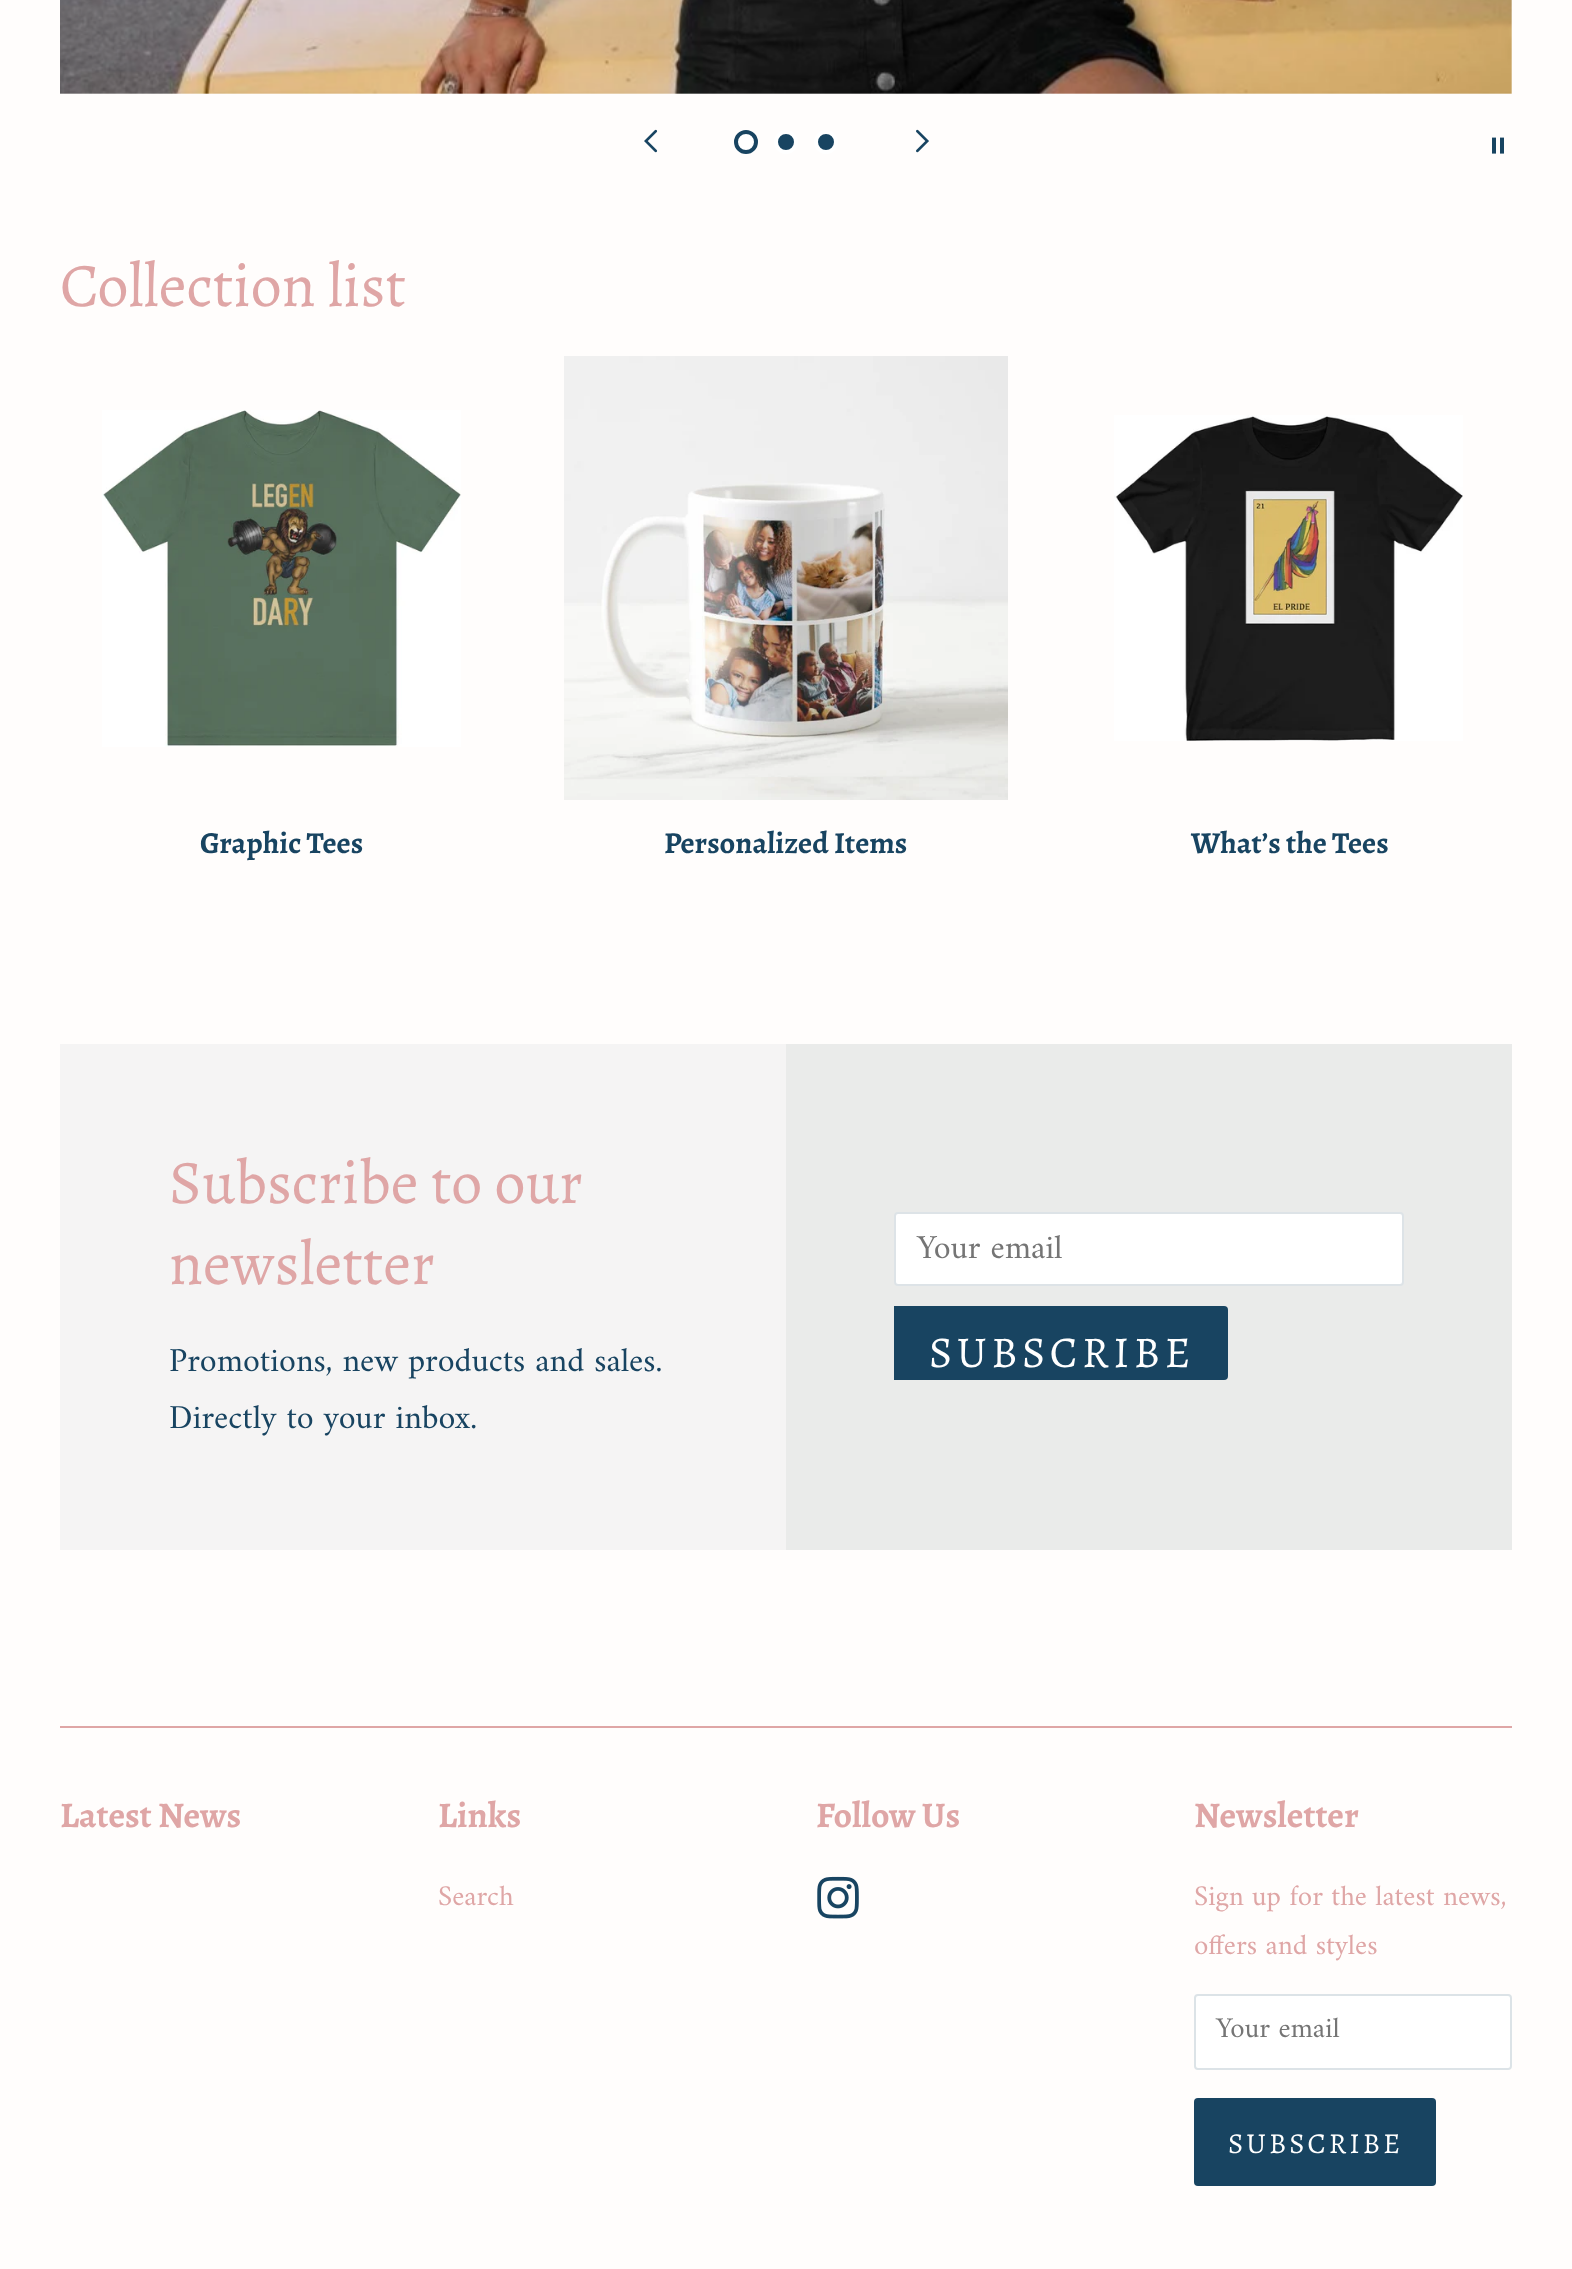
<!DOCTYPE html>
<meta charset="utf-8">
<style>body { margin: 0 } canvas { display: block }</style>
<canvas id="canvas" width="1572" height="2269"></canvas>
<script type="module">
  const canvas = document.getElementById("canvas");
  const ctx = canvas.getContext("2d");
  ctx.miterLimit = 4;
  ctx.fontKerning = "normal";
  async function loadImage(src) {
    const img = new Image();
    img.src = src;
    await img.decode();
    return img;
  }

  ctx.fillStyle = "#fffdfc";
  ctx.fillRect(0, 0, 1572, 2269);
  ctx.drawImage(await loadImage("img1.png"), 60, 0, 1452, 94);
  ctx.drawImage(await loadImage("img2.png"), 644, 129, 14, 24);
  ctx.drawImage(await loadImage("img3.png"), 916, 129, 13, 24);
  ctx.fillStyle = "#ffffff";
  ctx.beginPath();
  ctx.arc(746, 142, 10, 0, Math.PI * 2);
  ctx.fill();
  ctx.strokeStyle = "#184461";
  ctx.lineWidth = 4;
  ctx.stroke();
  ctx.fillStyle = "#184461";
  ctx.beginPath();
  ctx.arc(786, 142, 10, 0, Math.PI * 2);
  ctx.fill();
  ctx.strokeStyle = "#ffffff";
  ctx.stroke();
  ctx.beginPath();
  ctx.arc(826, 142, 10, 0, Math.PI * 2);
  ctx.fill();
  ctx.stroke();
  ctx.drawImage(await loadImage("img4.png"), 1492, 137, 12, 17);
  ctx.font = "62px Alegreya";
  ctx.fillStyle = "#dfa6a6";
  ctx.fillText("Collection list", 60, 306);
  ctx.drawImage(await loadImage("img5.png"), 102, 410, 359, 337);
  ctx.font = "bold 30.5px Alegreya";
  ctx.fillStyle = "#184461";
  ctx.fillText("Graphic Tees", 200, 853);
  ctx.drawImage(await loadImage("img6.png"), 564, 356, 444, 444);
  ctx.fillText("Personalized Items", 664, 853);
  ctx.drawImage(await loadImage("img7.png"), 1114, 415, 349, 326);
  ctx.fillText("What’s the Tees", 1191, 853);
  ctx.fillStyle = "#f5f4f4";
  ctx.fillRect(60, 1044, 726, 506);
  ctx.font = "62px Alegreya";
  ctx.fillStyle = "#dfa6a6";
  ctx.fillText("Subscribe to our", 169, 1203);
  ctx.fillText("newsletter", 169, 1284);
  ctx.font = "34px Amiri";
  ctx.fillStyle = "#184461";
  ctx.fillText("Promotions, new products and sales.", 169, 1371);
  ctx.fillText("Directly to your inbox.", 169, 1428);
  ctx.fillStyle = "#eaebea";
  ctx.fillRect(786, 1044, 726, 506);
  ctx.fillStyle = "#ffffff";
  ctx.beginPath();
  ctx.roundRect(894, 1212, 510, 74, 4);
  ctx.fill();
  ctx.beginPath();
  ctx.roundRect(895, 1213, 508, 72, 3);
  ctx.strokeStyle = "rgba(24, 68, 97, 0.15)";
  ctx.lineWidth = 2;
  ctx.stroke();
  ctx.fillStyle = "#757575";
  ctx.fillText("Your email", 917, 1258);
  ctx.fillStyle = "#184461";
  ctx.beginPath();
  ctx.roundRect(894, 1306, 334, 74, [0, 4, 4, 0]);
  ctx.fill();
  ctx.letterSpacing = "4.5px";
  ctx.font = "44px Alegreya";
  ctx.fillStyle = "#ffffff";
  ctx.fillText("SUBSCRIBE", 929, 1367);
  ctx.fillStyle = "#dfa6a6";
  ctx.fillRect(60, 1726, 1452, 2);
  ctx.letterSpacing = "0px";
  ctx.font = "bold 36px Alegreya";
  ctx.fillText("Latest News", 60, 1827);
  ctx.fillText("Links", 438, 1827);
  ctx.font = "28.9px Amiri";
  ctx.fillText("Search", 438, 1905);
  ctx.font = "bold 36px Alegreya";
  ctx.fillText("Follow Us", 816, 1827);
  ctx.drawImage(await loadImage("img8.png"), 817, 1876, 42, 43);
  ctx.fillText("Newsletter", 1194, 1827);
  ctx.font = "28.9px Amiri";
  ctx.fillText("Sign up for the latest news,", 1194, 1905);
  ctx.fillText("offers and styles", 1194, 1954);
  ctx.fillStyle = "#ffffff";
  ctx.beginPath();
  ctx.roundRect(1195, 1995, 316, 74, 3);
  ctx.fill();
  ctx.strokeStyle = "#dce3e7";
  ctx.stroke();
  ctx.fillStyle = "#757575";
  ctx.fillText("Your email", 1216, 2037);
  ctx.fillStyle = "#184461";
  ctx.beginPath();
  ctx.roundRect(1194, 2098, 242, 88, 4);
  ctx.fill();
  ctx.letterSpacing = "3px";
  ctx.font = "28.9px Alegreya";
  ctx.fillStyle = "#ffffff";
  ctx.fillText("SUBSCRIBE", 1228, 2153);
</script>
